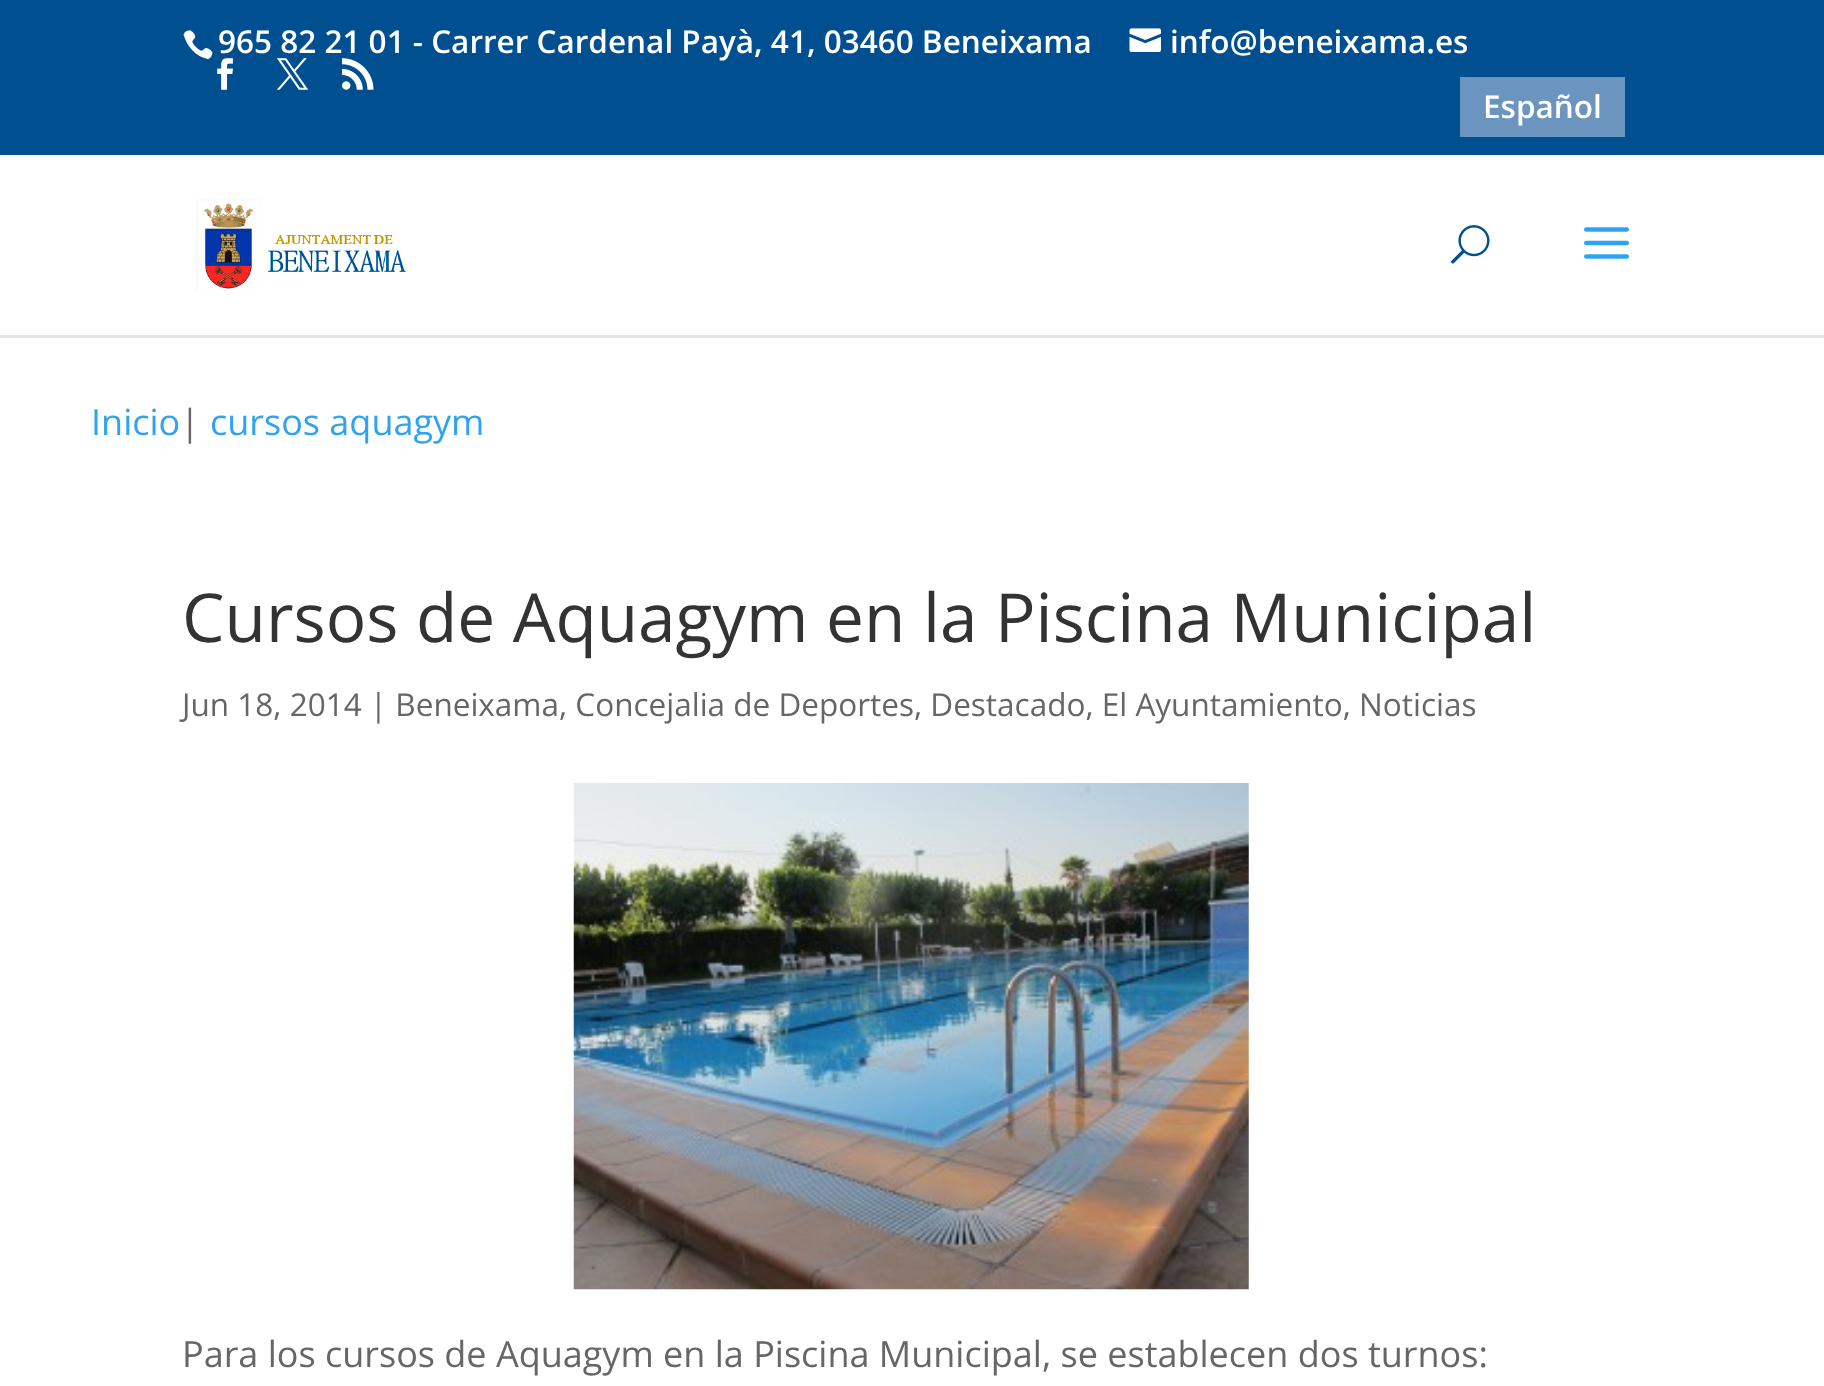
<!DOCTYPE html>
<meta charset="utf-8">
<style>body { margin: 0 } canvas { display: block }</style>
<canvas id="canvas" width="1824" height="1386"></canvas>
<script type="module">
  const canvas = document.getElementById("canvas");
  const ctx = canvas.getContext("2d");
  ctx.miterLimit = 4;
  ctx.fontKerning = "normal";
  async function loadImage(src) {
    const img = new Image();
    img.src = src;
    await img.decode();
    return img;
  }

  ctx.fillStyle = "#ffffff";
  ctx.fillRect(0, 0, 1824, 1386);
  ctx.fillStyle = "#005091";
  ctx.fillRect(0, 0, 1824, 155);
  ctx.drawImage(await loadImage("img1.png"), 183, 30, 30, 30);
  ctx.font = "600 31.5px Open Sans";
  ctx.fillStyle = "#ffffff";
  ctx.fillText("965 82 21 01 - Carrer Cardenal Payà, 41, 03460 Beneixama", 218, 53);
  ctx.drawImage(await loadImage("img2.png"), 1129, 28, 32, 24);
  ctx.fillText("info@beneixama.es", 1170, 53);
  ctx.drawImage(await loadImage("img3.png"), 217, 58, 16, 32);
  ctx.drawImage(await loadImage("img4.png"), 276, 58, 32, 32);
  ctx.drawImage(await loadImage("img5.png"), 342, 58, 32, 32);
  ctx.fillStyle = "#6b95bf";
  ctx.fillRect(1460, 77, 165, 60);
  ctx.fillStyle = "#ffffff";
  ctx.fillText("Español", 1483, 118);
  ctx.fillStyle = "#e6e6e6";
  ctx.beginPath();
  ctx.moveTo(0, 335);
  ctx.lineTo(0, 338);
  ctx.lineTo(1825, 338);
  ctx.lineTo(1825, 158);
  ctx.lineTo(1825, 335);
  ctx.closePath();
  ctx.fill();
  ctx.drawImage(await loadImage("img6.png"), 196, 199, 210, 92);
  ctx.drawImage(await loadImage("img7.png"), 1451, 225, 39, 39);
  ctx.drawImage(await loadImage("img8.png"), 1584, 227, 45, 32);
  ctx.font = "36px Open Sans";
  ctx.fillStyle = "#2ea3f2";
  ctx.fillText("Inicio", 91, 435);
  ctx.fillStyle = "#666666";
  ctx.fillText("|", 180, 435);
  ctx.fillStyle = "#2ea3f2";
  ctx.fillText("cursos aquagym", 210, 435);
  ctx.font = "67.5px Open Sans";
  ctx.fillStyle = "#333333";
  ctx.fillText("Cursos de Aquagym en la Piscina Municipal", 182, 642);
  ctx.font = "31.5px Open Sans";
  ctx.fillStyle = "#666666";
  ctx.fillText("Jun 18, 2014 | Beneixama, Concejalia de Deportes, Destacado, El Ayuntamiento, Noticias", 182, 716);
  ctx.drawImage(await loadImage("img9.png"), 573, 783, 676, 507);
  ctx.font = "36px Open Sans";
  ctx.fillText("Para los cursos de Aquagym en la Piscina Municipal, se establecen dos turnos:", 182, 1367);
</script>
